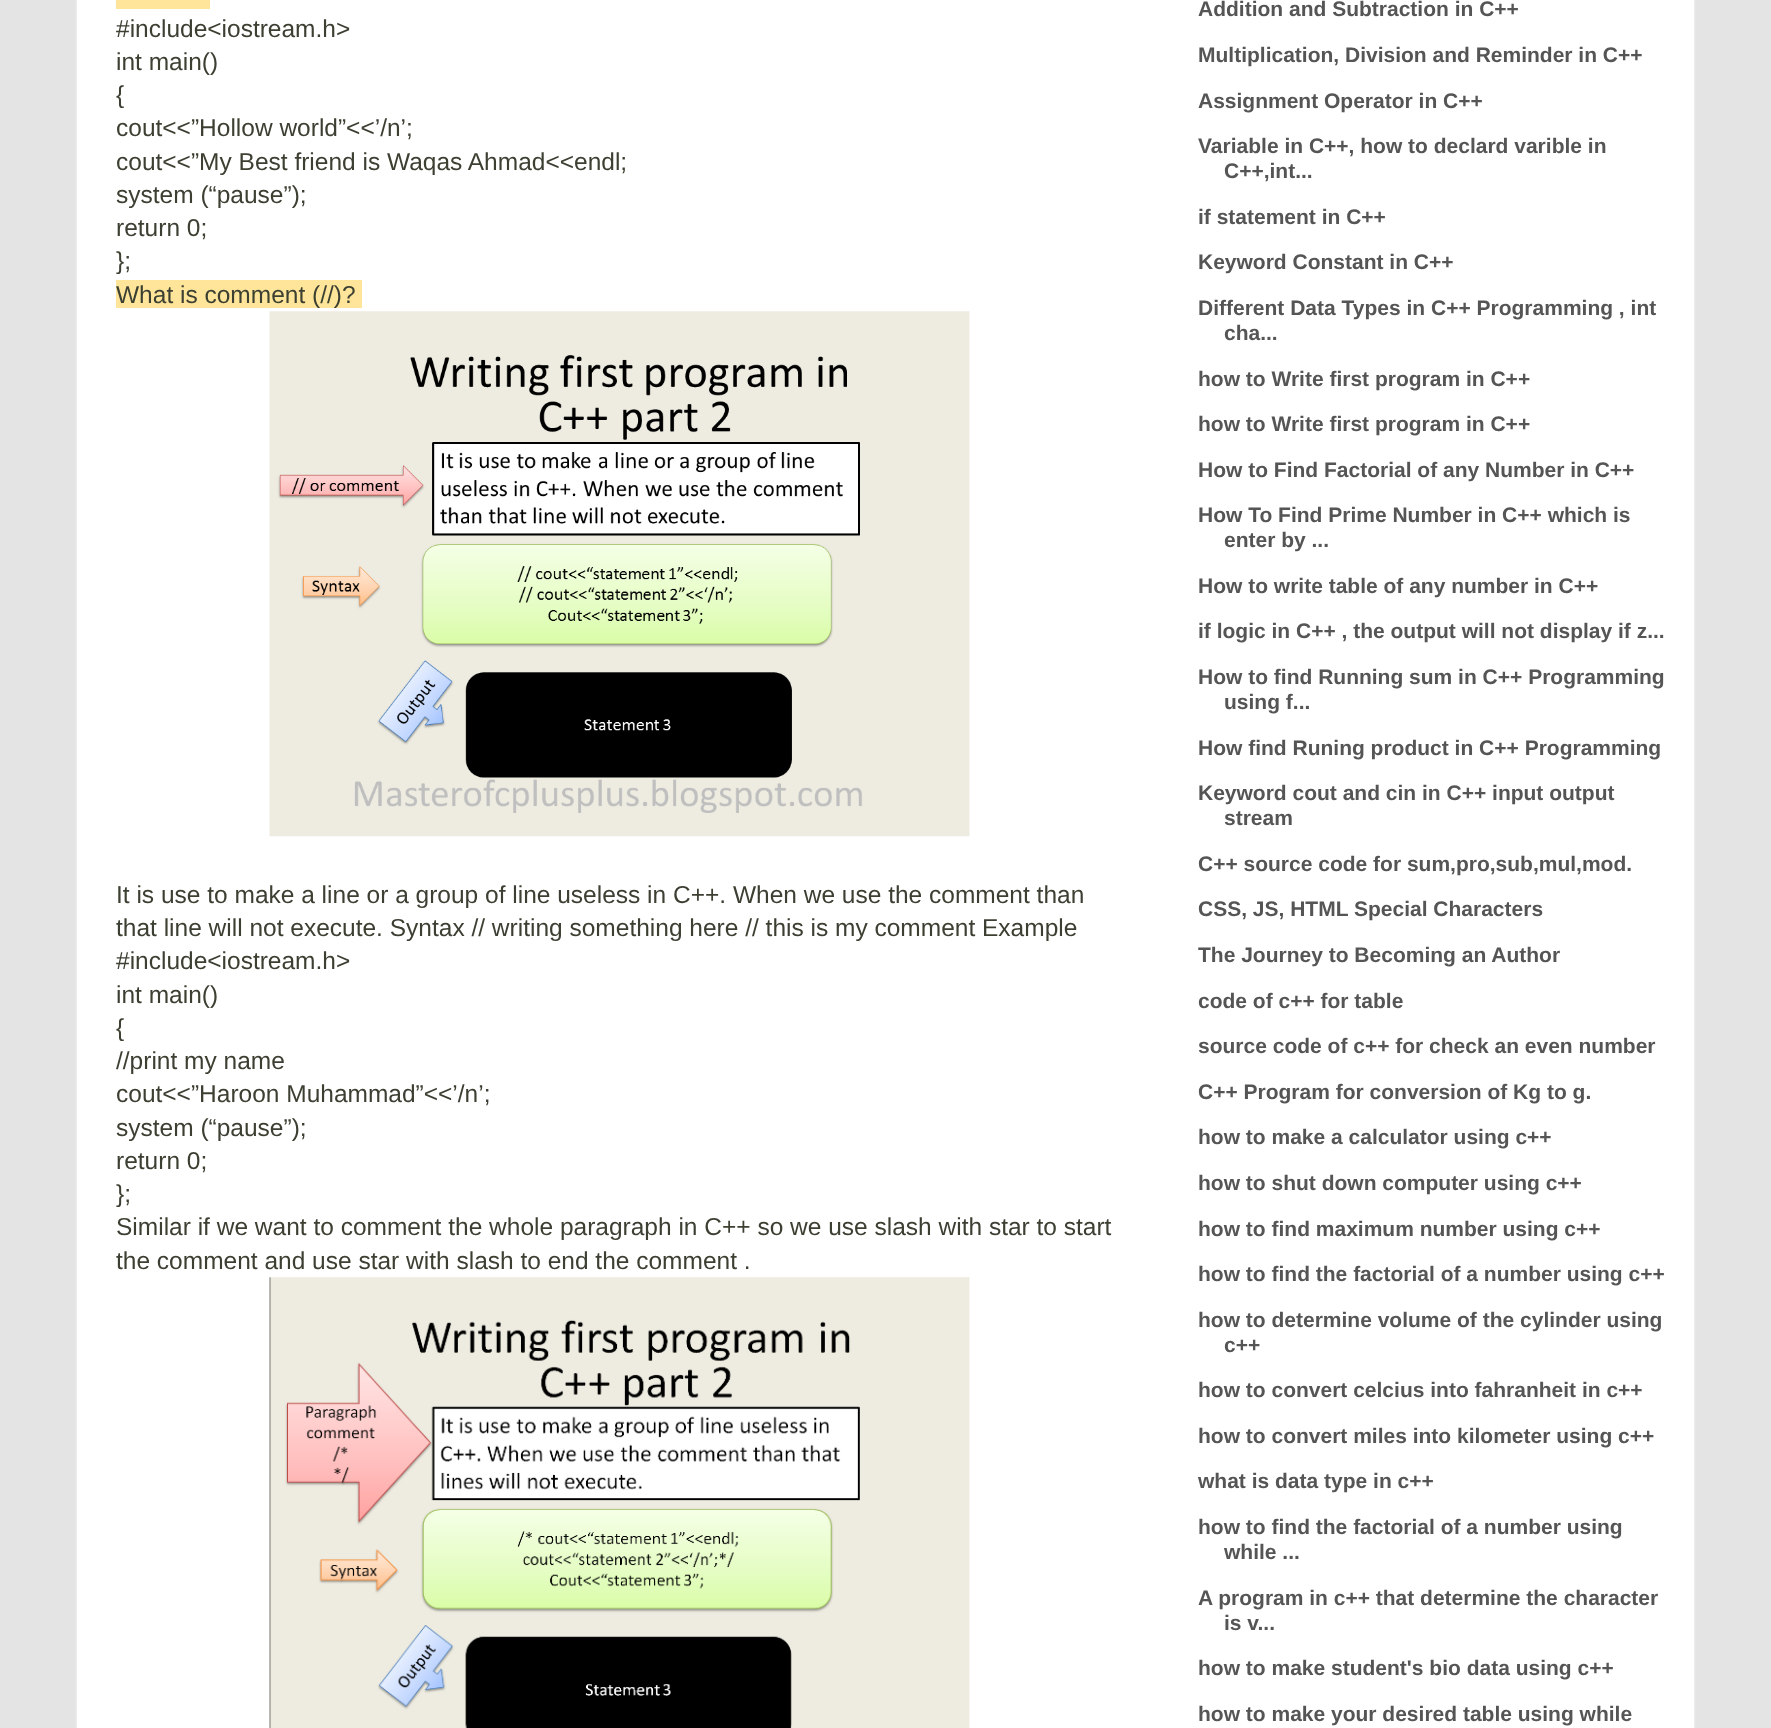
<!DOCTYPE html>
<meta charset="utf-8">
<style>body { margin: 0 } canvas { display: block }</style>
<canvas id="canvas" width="1771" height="1728"></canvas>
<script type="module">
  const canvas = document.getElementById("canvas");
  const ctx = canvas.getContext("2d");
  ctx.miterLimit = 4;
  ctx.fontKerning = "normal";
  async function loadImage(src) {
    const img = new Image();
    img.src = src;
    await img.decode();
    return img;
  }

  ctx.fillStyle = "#e4e4e4";
  ctx.fillRect(0, 0, 1771, 1728);
  ctx.fillStyle = "#ffffff";
  ctx.filter = "blur(1px)";
  ctx.beginPath();
  ctx.rect(77, -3, 1617, 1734);
  ctx.fill();
  ctx.filter = "none";
  ctx.fillRect(77, 0, 1617, 1728);
  ctx.fillStyle = "#ffe599";
  ctx.fillRect(116, 0, 94, 9);
  ctx.font = "24.5px Liberation Sans";
  ctx.fillStyle = "#3c4032";
  ctx.fillText("#include<iostream.h>", 116, 37);
  ctx.fillText("int main()", 116, 70);
  ctx.fillText("{", 116, 103);
  ctx.fillText("cout<<”Hollow world”<<’/n’;", 116, 136);
  ctx.fillText("cout<<”My Best friend is Waqas Ahmad<<endl;", 116, 170);
  ctx.fillText("system (“pause”);", 116, 203);
  ctx.fillText("return 0;", 116, 236);
  ctx.fillText("};", 116, 269);
  ctx.fillStyle = "#ffe599";
  ctx.fillRect(116, 280, 246, 28);
  ctx.fillStyle = "#3c4032";
  ctx.fillText("What is comment (//)?", 116, 303);
  ctx.drawImage(await loadImage("img1.png"), 269, 311, 701, 526);
  ctx.fillText("It is use to make a line or a group of line useless in C++. When we use the comment than", 116, 903);
  ctx.fillText("that line will not execute. Syntax // writing something here // this is my comment Example", 116, 936);
  ctx.fillText("#include<iostream.h>", 116, 969);
  ctx.fillText("int main()", 116, 1003);
  ctx.fillText("{", 116, 1036);
  ctx.fillText("//print my name", 116, 1069);
  ctx.fillText("cout<<”Haroon Muhammad”<<’/n’;", 116, 1102);
  ctx.fillText("system (“pause”);", 116, 1136);
  ctx.fillText("return 0;", 116, 1169);
  ctx.fillText("};", 116, 1202);
  ctx.fillText("Similar if we want to comment the whole paragraph in C++ so we use slash with star to start", 116, 1235);
  ctx.fillText("the comment and use star with slash to end the comment .", 116, 1269);
  ctx.drawImage(await loadImage("img2.png"), 269, 1277, 701, 451);
  ctx.font = "bold 21px Liberation Sans";
  ctx.fillStyle = "#555555";
  ctx.fillText("Addition and Subtraction in C++", 1198, 16);
  ctx.fillText("Multiplication, Division and Reminder in C++", 1198, 62);
  ctx.fillText("Assignment Operator in C++", 1198, 108);
  ctx.fillText("Variable in C++, how to declard varible in", 1198, 153);
  ctx.fillText("C++,int...", 1224, 178);
  ctx.fillText("if statement in C++", 1198, 224);
  ctx.fillText("Keyword Constant in C++", 1198, 269);
  ctx.fillText("Different Data Types in C++ Programming , int", 1198, 315);
  ctx.fillText("cha...", 1224, 340);
  ctx.fillText("how to Write first program in C++", 1198, 386);
  ctx.fillText("how to Write first program in C++", 1198, 431);
  ctx.fillText("How to Find Factorial of any Number in C++", 1198, 477);
  ctx.fillText("How To Find Prime Number in C++ which is", 1198, 522);
  ctx.fillText("enter by ...", 1224, 547);
  ctx.fillText("How to write table of any number in C++", 1198, 593);
  ctx.fillText("if logic in C++ , the output will not display if z...", 1198, 638);
  ctx.fillText("How to find Running sum in C++ Programming", 1198, 684);
  ctx.fillText("using f...", 1224, 709);
  ctx.fillText("How find Runing product in C++ Programming", 1198, 755);
  ctx.fillText("Keyword cout and cin in C++ input output", 1198, 800);
  ctx.fillText("stream", 1224, 825);
  ctx.fillText("C++ source code for sum,pro,sub,mul,mod.", 1198, 871);
  ctx.fillText("CSS, JS, HTML Special Characters", 1198, 916);
  ctx.fillText("The Journey to Becoming an Author", 1198, 962);
  ctx.fillText("code of c++ for table", 1198, 1008);
  ctx.fillText("source code of c++ for check an even number", 1198, 1053);
  ctx.fillText("C++ Program for conversion of Kg to g.", 1198, 1099);
  ctx.fillText("how to make a calculator using c++", 1198, 1144);
  ctx.fillText("how to shut down computer using c++", 1198, 1190);
  ctx.fillText("how to find maximum number using c++", 1198, 1236);
  ctx.fillText("how to find the factorial of a number using c++", 1198, 1281);
  ctx.fillText("how to determine volume of the cylinder using", 1198, 1327);
  ctx.fillText("c++", 1224, 1352);
  ctx.fillText("how to convert celcius into fahranheit in c++", 1198, 1397);
  ctx.fillText("how to convert miles into kilometer using c++", 1198, 1443);
  ctx.fillText("what is data type in c++", 1198, 1488);
  ctx.fillText("how to find the factorial of a number using", 1198, 1534);
  ctx.fillText("while ...", 1224, 1559);
  ctx.fillText("A program in c++ that determine the character", 1198, 1605);
  ctx.fillText("is v...", 1224, 1630);
  ctx.fillText("how to make student's bio data using c++", 1198, 1675);
  ctx.fillText("how to make your desired table using while", 1198, 1721);
</script>
